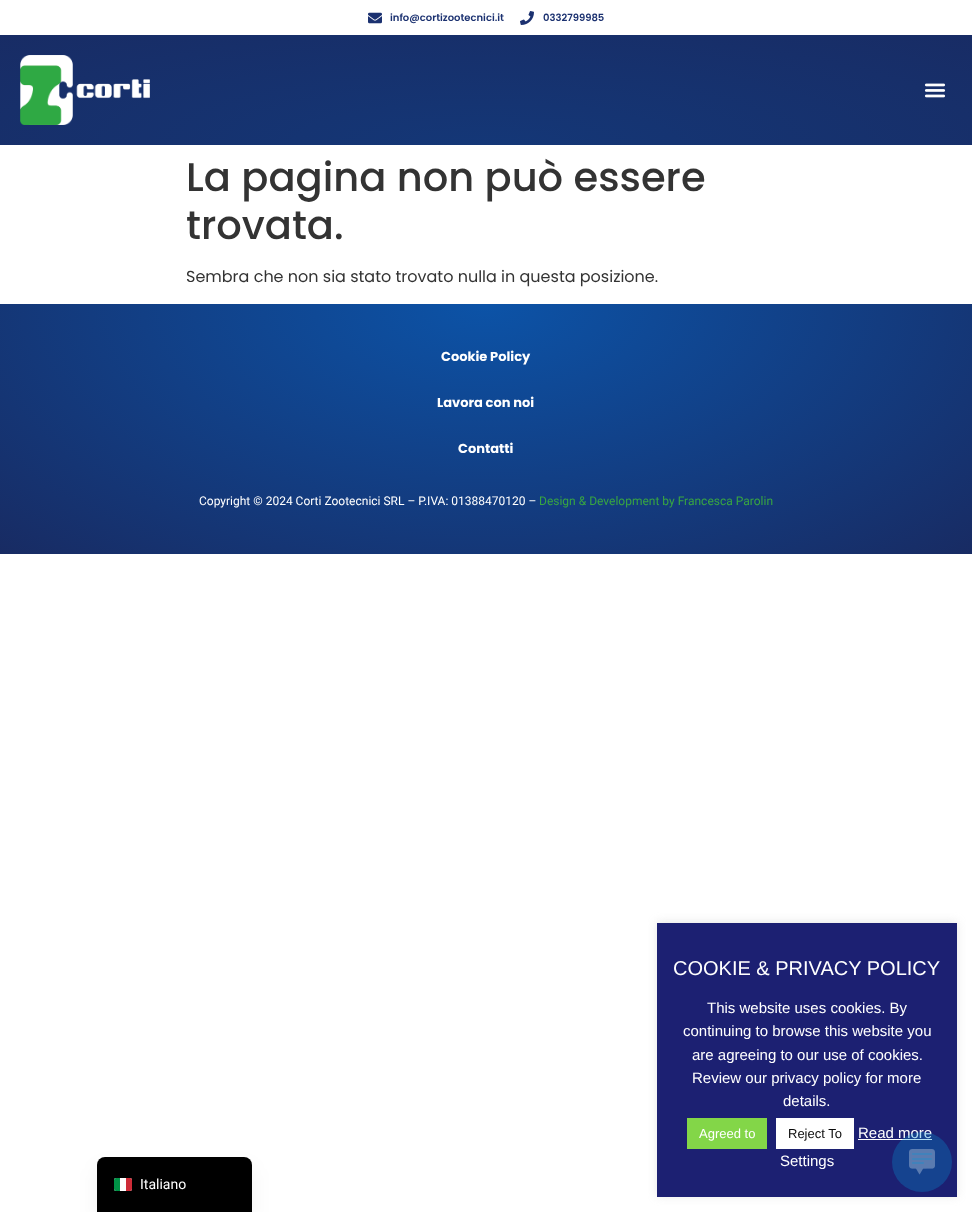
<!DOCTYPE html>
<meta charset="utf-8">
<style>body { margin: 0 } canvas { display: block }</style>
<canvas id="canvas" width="972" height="1212"></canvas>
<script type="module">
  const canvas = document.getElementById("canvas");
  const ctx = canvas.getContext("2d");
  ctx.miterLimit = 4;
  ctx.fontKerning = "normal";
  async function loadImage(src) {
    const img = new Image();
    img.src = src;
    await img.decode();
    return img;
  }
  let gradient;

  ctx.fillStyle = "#ffffff";
  ctx.fillRect(0, 0, 972, 1212);
  ctx.drawImage(await loadImage("img1.png"), 368, 12, 14, 12);
  ctx.font = "600 10px Poppins";
  ctx.fillStyle = "#1b3170";
  ctx.fillText("info@cortizootecnici.it", 390, 21);
  ctx.drawImage(await loadImage("img2.png"), 520, 11, 14, 14);
  ctx.fillText("0332799985", 543, 21);
  gradient = ctx.createRadialGradient(486, 638.56, 0, 486, 638.56, 687);
  gradient.addColorStop(0, "#143777");
  gradient.addColorStop(1, "#182c65");
  ctx.fillStyle = gradient;
  ctx.beginPath();
  ctx.rect(0, 35, 972, 110);
  ctx.save();
  ctx.clip();
  ctx.scale(1, 156 / 687);
  ctx.fillRect(0, 0, 972, 5338);
  ctx.restore();
  ctx.drawImage(await loadImage("img3.png"), 20, 55, 130, 70);
  ctx.drawImage(await loadImage("img4.png"), 924, 83, 22, 15);
  ctx.font = "500 40px Poppins";
  ctx.fillStyle = "#333333";
  ctx.fillText("La pagina non può essere", 186, 191);
  ctx.fillText("trovata.", 186, 239);
  ctx.font = "16px Poppins";
  ctx.fillText("Sembra che non sia stato trovato nulla in questa posizione.", 186, 282);
  gradient = ctx.createRadialGradient(486, 589.97, 0, 486, 589.97, 687);
  gradient.addColorStop(0, "#0c53a7");
  gradient.addColorStop(1, "#182b63");
  ctx.fillStyle = gradient;
  ctx.beginPath();
  ctx.rect(0, 304, 972, 250);
  ctx.save();
  ctx.clip();
  ctx.scale(1, 354 / 687);
  ctx.fillRect(0, 0, 972, 2353);
  ctx.restore();
  ctx.font = "bold 13px Poppins";
  ctx.fillStyle = "#ffffff";
  ctx.fillText("Cookie Policy", 441, 361);
  ctx.fillText("Lavora con noi", 437, 407);
  ctx.fillText("Contatti", 458, 453);
  ctx.font = "12px Roboto";
  ctx.fillText("Copyright © 2024 Corti Zootecnici SRL – P.IVA: 01388470120 –", 199, 505);
  ctx.fillStyle = "#38a542";
  ctx.fillText("Design & Development by Francesca Parolin", 539, 505);
  ctx.fillStyle = "rgba(172, 171, 171, 0.3)";
  ctx.filter = "blur(5px)";
  ctx.beginPath();
  ctx.rect(657, 922, 300, 274);
  ctx.fill();
  ctx.filter = "none";
  ctx.fillStyle = "#1c2072";
  ctx.fillRect(657, 923, 300, 274);
  ctx.font = "20px Liberation Sans";
  ctx.fillStyle = "#ffffff";
  ctx.fillText("COOKIE & PRIVACY POLICY", 673, 975);
  ctx.font = "15px Liberation Sans";
  ctx.fillText("This website uses cookies. By", 707, 1013);
  ctx.fillText("continuing to browse this website you", 683, 1036);
  ctx.fillText("are agreeing to our use of cookies.", 692, 1060);
  ctx.fillText("Review our privacy policy for more", 692, 1083);
  ctx.fillText("details.", 783, 1106);
  ctx.fillStyle = "#83d648";
  ctx.fillRect(687, 1118, 80, 31);
  ctx.font = "13px Liberation Sans";
  ctx.fillStyle = "#ffffff";
  ctx.fillText("Agreed to", 699, 1138);
  ctx.fillRect(776, 1118, 78, 31);
  ctx.fillStyle = "#0a0a0a";
  ctx.fillText("Reject To", 788, 1138);
  ctx.font = "15px Liberation Sans";
  ctx.fillStyle = "#ffffff";
  ctx.fillText("Read more", 858, 1138);
  ctx.fillRect(858, 1139, 74, 1);
  ctx.fillText("Settings", 780, 1166);
  ctx.fillStyle = "rgba(0, 0, 0, 0.05)";
  ctx.filter = "blur(10px)";
  ctx.beginPath();
  ctx.roundRect(97, 1167, 155, 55, 8);
  ctx.fill();
  ctx.filter = "none";
  ctx.fillStyle = "#000000";
  ctx.beginPath();
  ctx.roundRect(97, 1157, 155, 55, [8, 8, 0, 0]);
  ctx.fill();
  ctx.fillStyle = "#ffffff";
  ctx.beginPath();
  ctx.roundRect(114, 1178, 18, 13, 2);
  ctx.fill();
  ctx.fillStyle = "#009246";
  ctx.beginPath();
  ctx.roundRect(114, 1178, 6, 13, [2, 0, 0, 2]);
  ctx.fill();
  ctx.fillStyle = "#ce2b37";
  ctx.beginPath();
  ctx.roundRect(126, 1178, 6, 13, [0, 2, 2, 0]);
  ctx.fill();
  ctx.font = "14px Roboto";
  ctx.fillStyle = "#ffffff";
  ctx.fillText("Italiano", 140, 1189);
  ctx.fillStyle = "rgba(5, 150, 212, 0.3)";
  ctx.beginPath();
  ctx.arc(922, 1162, 30, 0, Math.PI * 2);
  ctx.fill();
  ctx.drawImage(await loadImage("img5.png"), 909, 1149, 26, 26);
</script>
